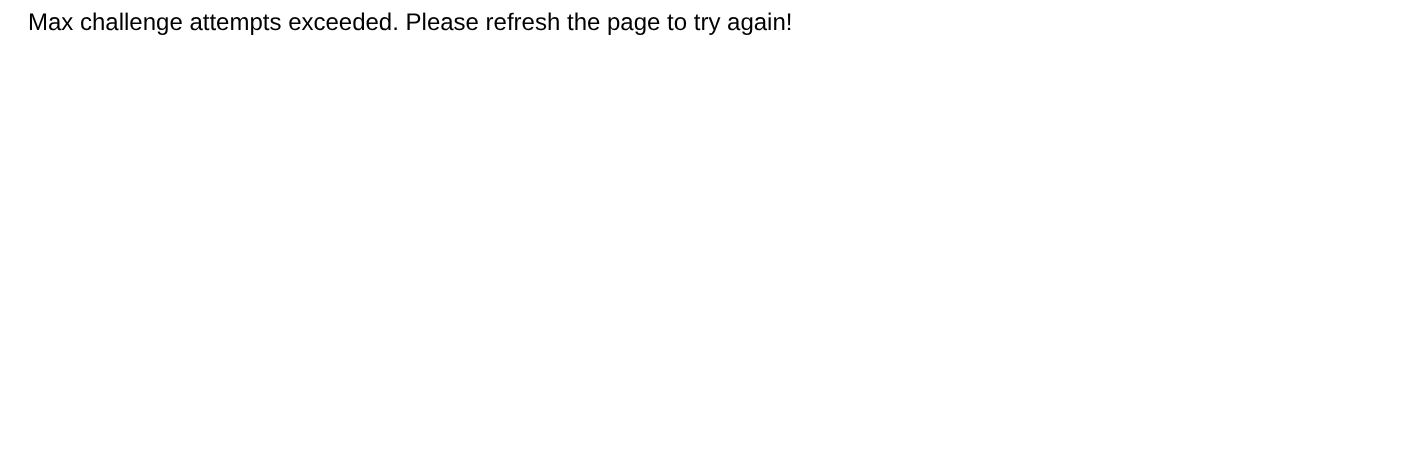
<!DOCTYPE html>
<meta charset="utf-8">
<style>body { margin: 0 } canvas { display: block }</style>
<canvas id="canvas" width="1423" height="468"></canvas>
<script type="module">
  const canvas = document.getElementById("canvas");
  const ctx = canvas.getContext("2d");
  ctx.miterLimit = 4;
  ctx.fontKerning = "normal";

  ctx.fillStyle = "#ffffff";
  ctx.fillRect(0, 0, 1423, 468);
  ctx.font = "24px Liberation Sans";
  ctx.fillStyle = "#000000";
  ctx.fillText("Max challenge attempts exceeded. Please refresh the page to try again!", 28, 30);
</script>
